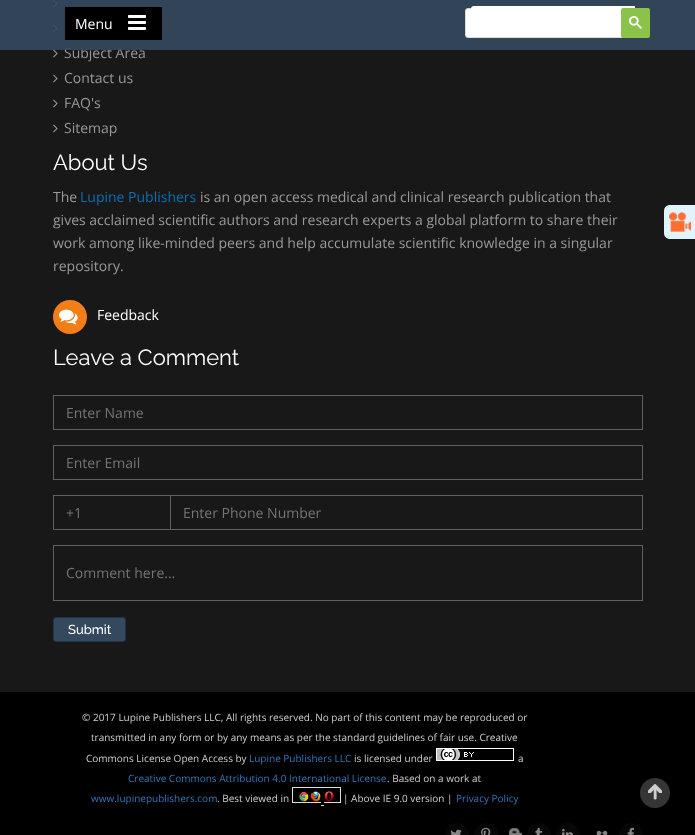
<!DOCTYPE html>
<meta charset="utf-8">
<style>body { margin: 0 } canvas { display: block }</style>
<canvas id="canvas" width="695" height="835"></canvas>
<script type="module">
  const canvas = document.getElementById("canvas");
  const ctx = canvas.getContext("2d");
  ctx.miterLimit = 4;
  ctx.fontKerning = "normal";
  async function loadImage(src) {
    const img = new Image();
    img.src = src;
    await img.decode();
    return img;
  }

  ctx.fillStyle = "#181818";
  ctx.fillRect(0, 0, 695, 835);
  ctx.drawImage(await loadImage("img3.png"), 53, 0, 5, 8);
  ctx.drawImage(await loadImage("img4.png"), 53, 24, 5, 9);
  ctx.drawImage(await loadImage("img4.png"), 53, 49, 5, 9);
  ctx.font = "14px Open Sans";
  ctx.fillStyle = "#999999";
  ctx.fillText("Subject Area", 64, 58);
  ctx.fillStyle = "rgba(52, 73, 94, 0.91)";
  ctx.fillRect(0, 0, 695, 50);
  ctx.fillStyle = "#000000";
  ctx.fillRect(65, 7, 97, 33);
  ctx.fillStyle = "#ffffff";
  ctx.fillText("Menu", 75, 29);
  ctx.drawImage(await loadImage("img1.png"), 128, 15, 18, 15);
  ctx.beginPath();
  ctx.roundRect(465.5, 8.5, 179, 29, 2.5);
  ctx.fill();
  ctx.strokeStyle = "#d9d9d9";
  ctx.stroke();
  ctx.beginPath();
  ctx.roundRect(471, 6, 164, 20, [3, 0, 0, 3]);
  ctx.fill();
  ctx.fillStyle = "#8bc34a";
  ctx.beginPath();
  ctx.roundRect(621, 8, 29, 30, 2);
  ctx.fill();
  ctx.drawImage(await loadImage("img2.png"), 629, 16, 13, 13);
  ctx.drawImage(await loadImage("img4.png"), 53, 74, 5, 9);
  ctx.fillStyle = "#999999";
  ctx.fillText("Contact us", 64, 83);
  ctx.drawImage(await loadImage("img4.png"), 53, 99, 5, 9);
  ctx.fillText("FAQ's", 64, 108);
  ctx.drawImage(await loadImage("img4.png"), 53, 124, 5, 9);
  ctx.fillText("Sitemap", 64, 133);
  ctx.font = "22px Raleway";
  ctx.fillStyle = "#ffffff";
  ctx.fillText("About Us", 53, 170);
  ctx.font = "14px Open Sans";
  ctx.fillStyle = "#999999";
  ctx.fillText("The", 53, 202);
  ctx.fillStyle = "#0a71b5";
  ctx.fillText("Lupine Publishers", 80, 202);
  ctx.fillStyle = "#999999";
  ctx.fillText("is an open access medical and clinical research publication that", 200, 202);
  ctx.fillText("gives acclaimed scientific authors and research experts a global platform to share their", 53, 225);
  ctx.fillText("work among like-minded peers and help accumulate scientific knowledge in a singular", 53, 248);
  ctx.fillText("repository.", 53, 271);
  ctx.fillStyle = "#f37e17";
  ctx.beginPath();
  ctx.arc(70, 317, 17, 0, Math.PI * 2);
  ctx.fill();
  ctx.drawImage(await loadImage("img5.png"), 59, 309, 19, 16);
  ctx.fillStyle = "#ffffff";
  ctx.fillText("Feedback", 97, 320);
  ctx.font = "22px Raleway";
  ctx.fillText("Leave a Comment", 53, 365);
  ctx.strokeStyle = "#615f5f";
  ctx.strokeRect(53.5, 395.5, 589, 34);
  ctx.font = "14px Open Sans";
  ctx.fillStyle = "#757575";
  ctx.fillText("Enter Name", 66, 418);
  ctx.strokeRect(53.5, 445.5, 589, 34);
  ctx.fillText("Enter Email", 66, 468);
  ctx.strokeRect(53.5, 495.5, 117, 34);
  ctx.fillText("+1", 66, 518);
  ctx.fillStyle = "#615f5f";
  ctx.fillRect(171, 495, 472, 1);
  ctx.fillRect(642, 495, 1, 35);
  ctx.fillRect(171, 529, 472, 1);
  ctx.fillStyle = "#757575";
  ctx.fillText("Enter Phone Number", 183, 518);
  ctx.strokeRect(53.5, 545.5, 589, 55);
  ctx.fillText("Comment here...", 66, 578);
  ctx.fillStyle = "#34495e";
  ctx.beginPath();
  ctx.roundRect(53.5, 617.5, 72, 24, 2.5);
  ctx.fill();
  ctx.strokeStyle = "#213346";
  ctx.stroke();
  ctx.font = "500 13px Raleway";
  ctx.fillStyle = "#ffffff";
  ctx.fillText("Submit", 68, 634);
  ctx.fillStyle = "#000000";
  ctx.fillRect(0, 692, 695, 143);
  ctx.font = "10px Open Sans";
  ctx.fillStyle = "#d2cdcd";
  ctx.fillText("© 2017 Lupine Publishers LLC, All rights reserved. No part of this content may be reproduced or", 82, 721);
  ctx.fillText("transmitted in any form or by any means as per the standard guidelines of fair use. Creative", 91, 741);
  ctx.fillText("Commons License Open Access by", 86, 762);
  ctx.fillStyle = "#3377bb";
  ctx.fillText("Lupine Publishers LLC", 249, 762);
  ctx.fillStyle = "#d2cdcd";
  ctx.fillText("is licensed under", 354, 762);
  ctx.drawImage(await loadImage("img6.png"), 436, 748, 78, 13);
  ctx.fillText("a", 518, 762);
  ctx.fillStyle = "#3377bb";
  ctx.fillText("Creative Commons Attribution 4.0 International License", 128, 782);
  ctx.fillStyle = "#d2cdcd";
  ctx.fillText(". Based on a work at", 387, 782);
  ctx.fillStyle = "#dddddd";
  ctx.fillRect(292, 787, 49, 1);
  ctx.fillStyle = "#3377bb";
  ctx.fillText("www.lupinepublishers.com", 91, 802);
  ctx.fillStyle = "#d2cdcd";
  ctx.fillText(". Best viewed in", 217, 802);
  ctx.fillStyle = "#dddddd";
  ctx.fillRect(292, 802, 29, 1);
  ctx.fillRect(292, 787, 1, 16);
  ctx.drawImage(await loadImage("img7.png"), 299, 791, 22, 11);
  ctx.drawImage(await loadImage("img8.png"), 324, 791, 10, 11);
  ctx.fillRect(340, 787, 1, 16);
  ctx.fillStyle = "#d2cdcd";
  ctx.fillText("| Above IE 9.0 version |", 343, 802);
  ctx.fillStyle = "#3377bb";
  ctx.fillText("Privacy Policy", 456, 802);
  ctx.fillStyle = "#dddddd";
  ctx.fillRect(324, 802, 17, 1);
  ctx.fillRect(321, 805, 3, 1);
  ctx.fillStyle = "#070708";
  ctx.beginPath();
  ctx.arc(457, 835, 12, 0, Math.PI * 2);
  ctx.fill();
  ctx.drawImage(await loadImage("img9.png"), 450, 829, 12, 6);
  ctx.beginPath();
  ctx.arc(486, 835, 12, 0, Math.PI * 2);
  ctx.fill();
  ctx.drawImage(await loadImage("img10.png"), 481, 827, 10, 8);
  ctx.drawImage(await loadImage("img11.png"), 508, 827, 14, 8);
  ctx.beginPath();
  ctx.arc(539, 835, 12, 0, Math.PI * 2);
  ctx.fill();
  ctx.drawImage(await loadImage("img12.png"), 535, 827, 8, 8);
  ctx.beginPath();
  ctx.arc(568, 835, 12, 0, Math.PI * 2);
  ctx.fill();
  ctx.drawImage(await loadImage("img13.png"), 562, 828, 11, 7);
  ctx.drawImage(await loadImage("img14.png"), 596, 830, 12, 5);
  ctx.beginPath();
  ctx.arc(631, 835, 12, 0, Math.PI * 2);
  ctx.fill();
  ctx.drawImage(await loadImage("img15.png"), 627, 827, 7, 8);
  ctx.fillStyle = "#e1f3fd";
  ctx.beginPath();
  ctx.moveTo(670, 205);
  ctx.lineTo(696, 205);
  ctx.lineTo(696, 239);
  ctx.lineTo(670, 239);
  ctx.bezierCurveTo(666.5, 239, 664, 236.5, 664, 233);
  ctx.lineTo(664, 211);
  ctx.bezierCurveTo(664, 207.5, 666.5, 205, 670, 205);
  ctx.closePath();
  ctx.fill();
  ctx.drawImage(await loadImage("img16.png"), 669, 212, 22, 20);
  ctx.drawImage(await loadImage("img17.png"), 640, 778, 30, 30);
</script>
